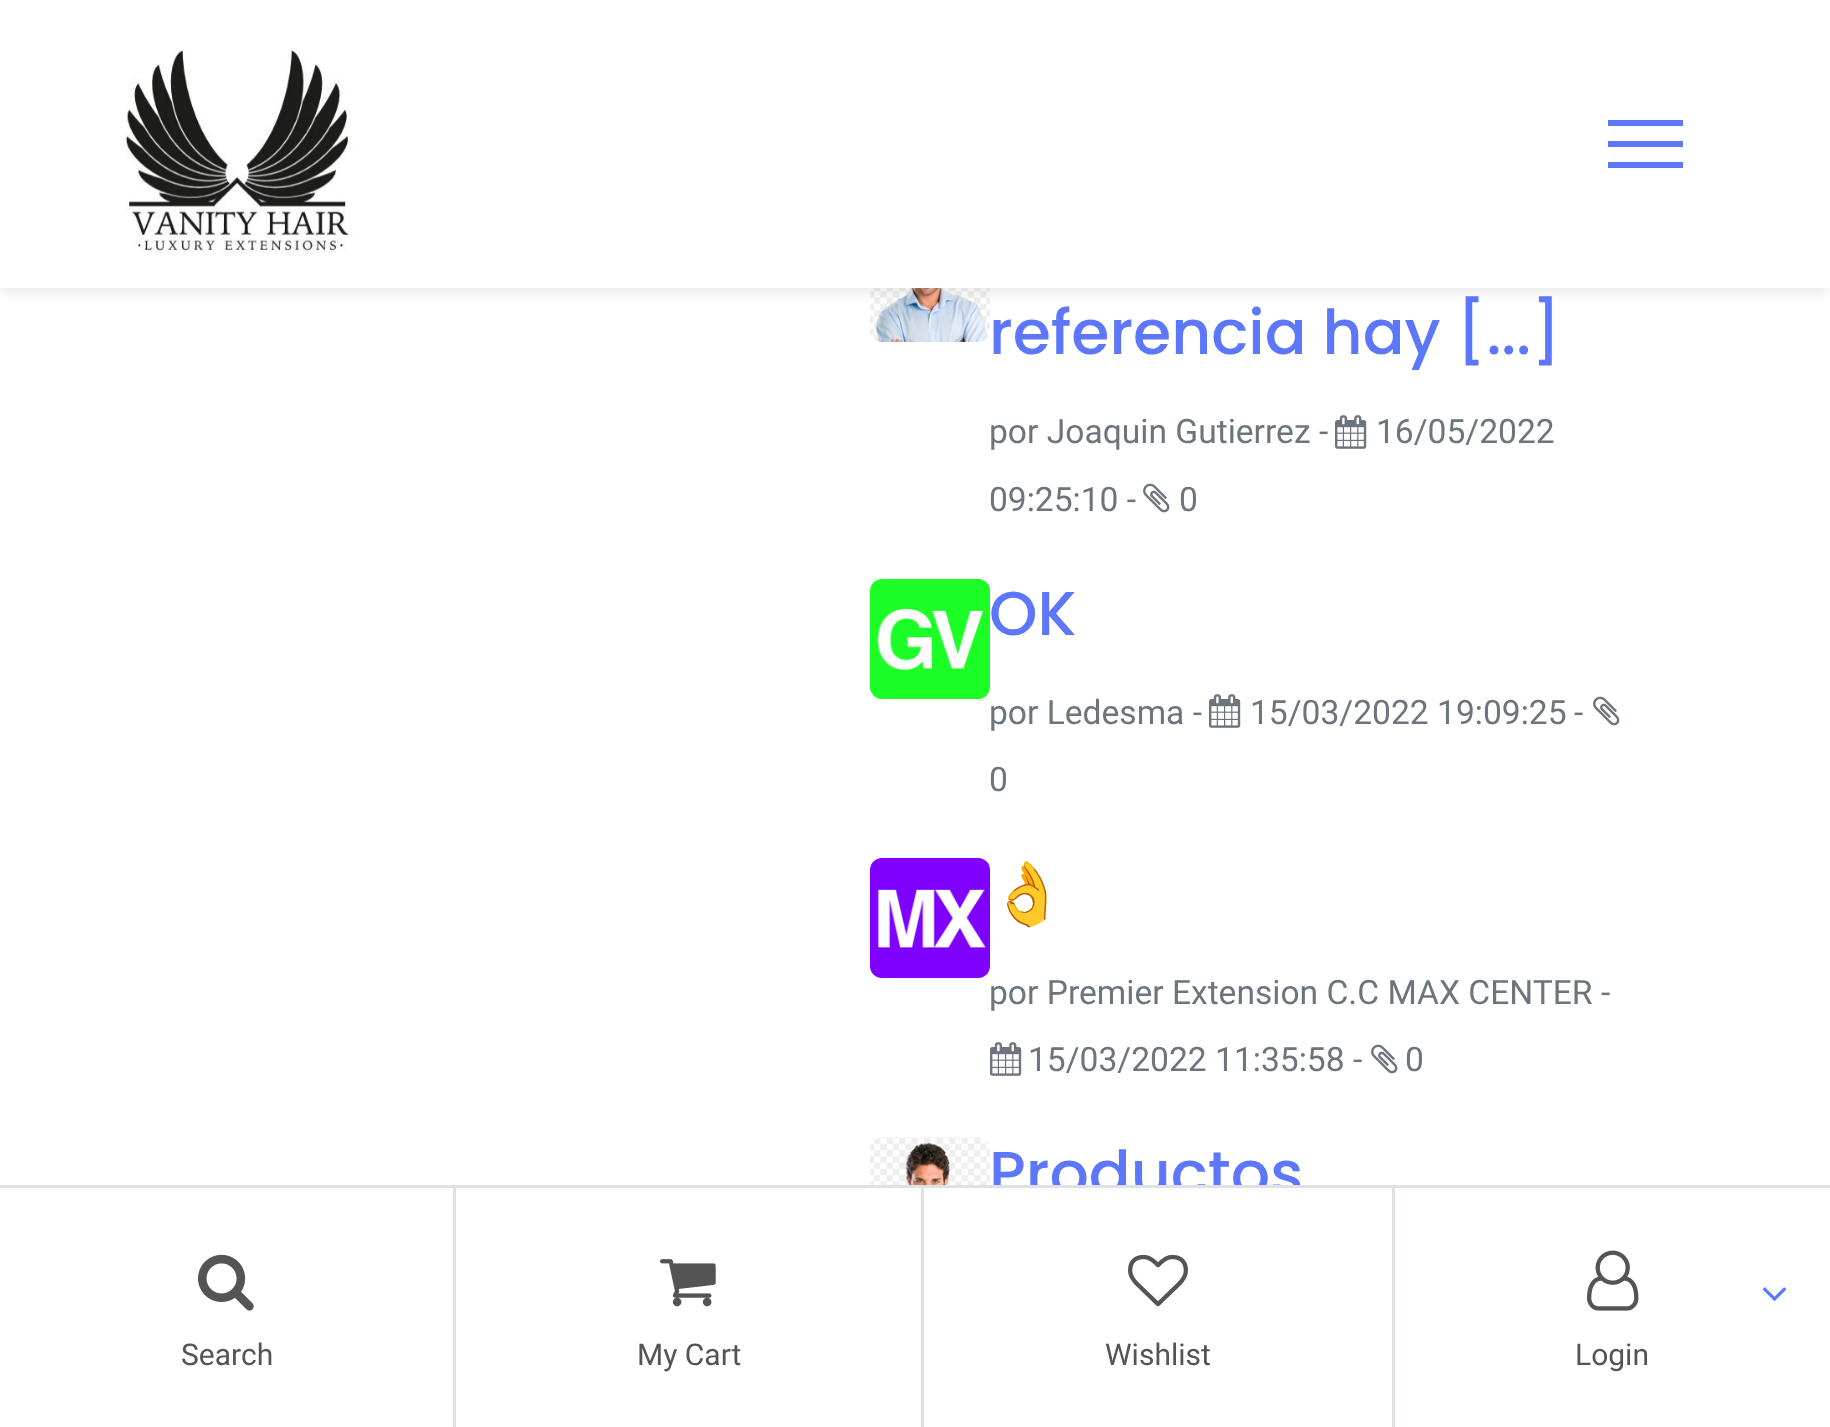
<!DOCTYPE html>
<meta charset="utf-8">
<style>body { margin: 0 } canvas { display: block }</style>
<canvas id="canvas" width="1830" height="1427"></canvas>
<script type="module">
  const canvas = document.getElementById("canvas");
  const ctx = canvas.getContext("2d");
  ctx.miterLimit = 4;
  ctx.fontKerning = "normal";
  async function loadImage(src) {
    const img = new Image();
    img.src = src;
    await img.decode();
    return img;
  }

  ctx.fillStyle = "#ffffff";
  ctx.fillRect(0, 0, 1830, 1427);
  ctx.drawImage(await loadImage("img2.png"), 870, 288, 120, 54);
  ctx.fillStyle = "rgba(0, 0, 0, 0.07)";
  ctx.filter = "blur(6px)";
  ctx.beginPath();
  ctx.rect(0, 6, 1830, 288);
  ctx.fill();
  ctx.filter = "none";
  ctx.fillStyle = "#ffffff";
  ctx.fillRect(0, 0, 1830, 288);
  ctx.drawImage(await loadImage("img1.png"), 125, 50, 228, 203);
  ctx.fillStyle = "#5c77fc";
  ctx.fillRect(1608, 120, 75, 6);
  ctx.fillRect(1608, 141, 75, 6);
  ctx.fillRect(1608, 162, 75, 6);
  ctx.font = "500 61.75px Poppins";
  ctx.fillText("referencia hay [...]", 989, 354);
  ctx.font = "33.6px Roboto";
  ctx.fillStyle = "#6c757d";
  ctx.fillText("por Joaquin Gutierrez", 989, 443);
  ctx.fillText("-", 1319, 443);
  ctx.drawImage(await loadImage("img3.png"), 1335, 415, 32, 34);
  ctx.fillText("16/05/2022", 1376, 443);
  ctx.fillText("09:25:10 -", 989, 511);
  ctx.drawImage(await loadImage("img4.png"), 1143, 483, 27, 30);
  ctx.fillText("0", 1179, 511);
  ctx.drawImage(await loadImage("img5.png"), 870, 579, 120, 120);
  ctx.font = "500 61.75px Poppins";
  ctx.fillStyle = "#5c77fc";
  ctx.fillText("OK", 989, 635);
  ctx.font = "33.6px Roboto";
  ctx.fillStyle = "#6c757d";
  ctx.fillText("por Ledesma -", 989, 724);
  ctx.drawImage(await loadImage("img3.png"), 1209, 694, 32, 34);
  ctx.fillText("15/03/2022 19:09:25", 1250, 724);
  ctx.fillText("-", 1574, 724);
  ctx.drawImage(await loadImage("img4.png"), 1593, 696, 27, 30);
  ctx.fillText("0", 989, 791);
  ctx.drawImage(await loadImage("img6.png"), 870, 858, 120, 120);
  ctx.font = "61.75px Noto Color Emoji";
  ctx.fillStyle = "#5c77fc";
  ctx.fillText("👌", 989, 915);
  ctx.font = "33.6px Roboto";
  ctx.fillStyle = "#6c757d";
  ctx.fillText("por Premier Extension C.C MAX CENTER", 989, 1004);
  ctx.fillText("-", 1601, 1004);
  ctx.drawImage(await loadImage("img3.png"), 990, 1042, 32, 34);
  ctx.fillText("15/03/2022 11:35:58", 1028, 1071);
  ctx.fillText("-", 1353, 1071);
  ctx.drawImage(await loadImage("img4.png"), 1371, 1044, 27, 30);
  ctx.fillText("0", 1405, 1071);
  ctx.drawImage(await loadImage("img7.png"), 870, 1137, 120, 48);
  ctx.font = "500 61.75px Poppins";
  ctx.fillStyle = "#5c77fc";
  ctx.fillText("Productos", 989, 1195);
  ctx.fillStyle = "#ffffff";
  ctx.fillRect(993, 1188, 307, 8);
  ctx.fillStyle = "#dee2e6";
  ctx.fillRect(0, 1185, 1830, 3);
  ctx.fillRect(453, 1188, 3, 239);
  ctx.drawImage(await loadImage("img8.png"), 198, 1254, 56, 57);
  ctx.font = "30px Roboto";
  ctx.fillStyle = "#545454";
  ctx.fillText("Search", 181, 1365);
  ctx.fillStyle = "#dee2e6";
  ctx.fillRect(921, 1188, 3, 239);
  ctx.drawImage(await loadImage("img9.png"), 660, 1259, 56, 48);
  ctx.fillStyle = "#545454";
  ctx.fillText("My Cart", 637, 1365);
  ctx.fillStyle = "#dee2e6";
  ctx.fillRect(1392, 1188, 3, 239);
  ctx.drawImage(await loadImage("img10.png"), 1128, 1254, 60, 53);
  ctx.fillStyle = "#545454";
  ctx.fillText("Wishlist", 1105, 1365);
  ctx.drawImage(await loadImage("img11.png"), 1587, 1250, 52, 61);
  ctx.drawImage(await loadImage("img12.png"), 1762, 1287, 25, 14);
  ctx.fillText("Login", 1575, 1365);
</script>
